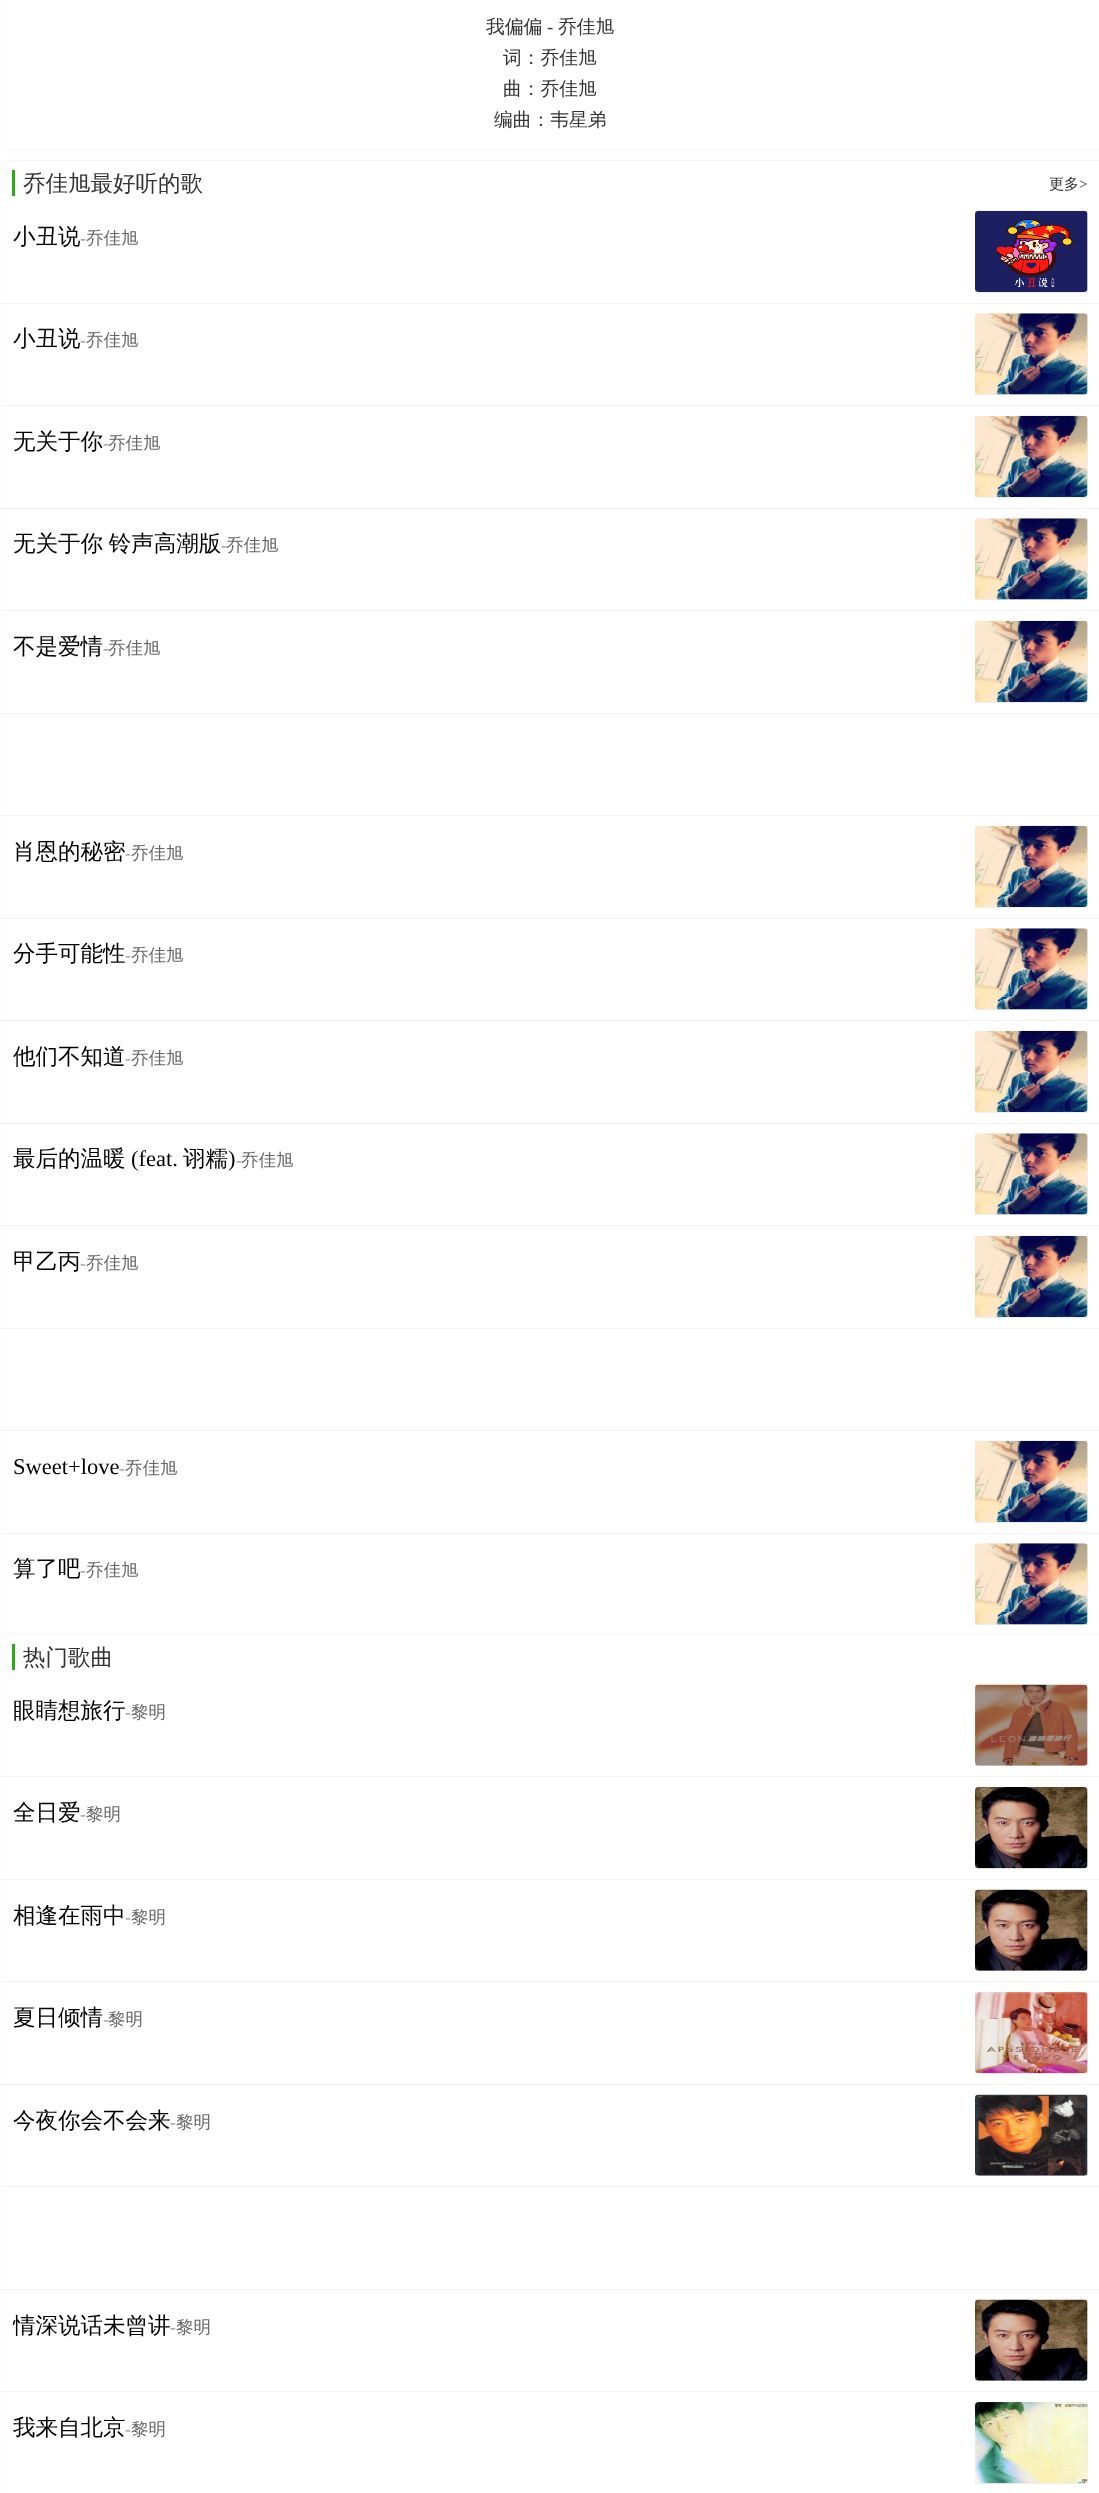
<!DOCTYPE html>
<meta charset="utf-8">
<style>body { margin: 0 } canvas { display: block }</style>
<canvas id="canvas" width="1099" height="2493"></canvas>
<script type="module">
  const canvas = document.getElementById("canvas");
  const ctx = canvas.getContext("2d");
  ctx.miterLimit = 4;
  ctx.fontKerning = "normal";
  async function loadImage(src) {
    const img = new Image();
    img.src = src;
    await img.decode();
    return img;
  }

  ctx.fillStyle = "#ffffff";
  ctx.fillRect(0, 0, 1099, 2493);
  ctx.fillStyle = "rgba(0, 0, 0, 0.1)";
  ctx.filter = "blur(1px)";
  ctx.beginPath();
  ctx.rect(3, -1, 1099, 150);
  ctx.fill();
  ctx.filter = "none";
  ctx.fillStyle = "#ffffff";
  ctx.fillRect(2, 0, 1097, 149);
  ctx.font = "500 18.75px WenQuanYi Zen Hei";
  ctx.fillStyle = "#333333";
  ctx.fillText("我偏偏", 486, 33);
  ctx.font = "18.75px Liberation Serif";
  ctx.fillText("-", 547, 33);
  ctx.font = "500 18.75px WenQuanYi Zen Hei";
  ctx.fillText("乔佳旭", 558, 33);
  ctx.fillText("词：乔佳旭", 503, 64);
  ctx.fillText("曲：乔佳旭", 503, 95);
  ctx.fillText("编曲：韦星弟", 494, 126);
  ctx.fillStyle = "rgba(0, 0, 0, 0.1)";
  ctx.filter = "blur(1px)";
  ctx.beginPath();
  ctx.rect(3, 161, 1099, 1474);
  ctx.fill();
  ctx.filter = "none";
  ctx.fillStyle = "#ffffff";
  ctx.fillRect(2, 161, 1097, 1474);
  ctx.fillStyle = "#28ae12";
  ctx.fillRect(12, 170, 3, 26);
  ctx.font = "500 22.5px WenQuanYi Zen Hei";
  ctx.fillStyle = "#333333";
  ctx.fillText("乔佳旭最好听的歌", 23, 191);
  ctx.font = "500 15px WenQuanYi Zen Hei";
  ctx.fillText("更多", 1049, 189);
  ctx.font = "15px Liberation Serif";
  ctx.fillText(">", 1079, 189);
  ctx.fillStyle = "#f3f3f3";
  ctx.fillRect(0, 303, 1099, 1);
  ctx.font = "500 22.5px WenQuanYi Zen Hei";
  ctx.fillStyle = "#000000";
  ctx.fillText("小丑说", 13, 244);
  ctx.font = "17.5px Liberation Serif";
  ctx.fillStyle = "#999999";
  ctx.fillText("-", 80, 244);
  ctx.font = "500 17.5px WenQuanYi Zen Hei";
  ctx.fillStyle = "#666666";
  ctx.fillText("乔佳旭", 86, 244);
  ctx.fillStyle = "#eeeeee";
  ctx.fillRect(975, 211, 113, 82);
  ctx.drawImage(await loadImage("img1.png"), 975, 210, 113, 82);
  ctx.fillStyle = "#f3f3f3";
  ctx.fillRect(0, 405, 1099, 1);
  ctx.font = "500 22.5px WenQuanYi Zen Hei";
  ctx.fillStyle = "#000000";
  ctx.fillText("小丑说", 13, 346);
  ctx.font = "17.5px Liberation Serif";
  ctx.fillStyle = "#999999";
  ctx.fillText("-", 80, 346);
  ctx.font = "500 17.5px WenQuanYi Zen Hei";
  ctx.fillStyle = "#666666";
  ctx.fillText("乔佳旭", 86, 346);
  ctx.fillStyle = "#eeeeee";
  ctx.fillRect(975, 314, 113, 81);
  ctx.drawImage(await loadImage("img2.png"), 975, 313, 113, 82);
  ctx.fillStyle = "#f3f3f3";
  ctx.fillRect(0, 508, 1099, 1);
  ctx.font = "500 22.5px WenQuanYi Zen Hei";
  ctx.fillStyle = "#000000";
  ctx.fillText("无关于你", 13, 449);
  ctx.font = "17.5px Liberation Serif";
  ctx.fillStyle = "#999999";
  ctx.fillText("-", 103, 449);
  ctx.font = "500 17.5px WenQuanYi Zen Hei";
  ctx.fillStyle = "#666666";
  ctx.fillText("乔佳旭", 108, 449);
  ctx.fillStyle = "#eeeeee";
  ctx.fillRect(975, 416, 113, 82);
  ctx.drawImage(await loadImage("img3.png"), 975, 415, 113, 82);
  ctx.fillStyle = "#f3f3f3";
  ctx.fillRect(0, 610, 1099, 1);
  ctx.wordSpacing = "-1px";
  ctx.font = "500 22.5px WenQuanYi Zen Hei";
  ctx.fillStyle = "#000000";
  ctx.fillText("无关于你 铃声高潮版", 13, 551);
  ctx.wordSpacing = "0px";
  ctx.font = "17.5px Liberation Serif";
  ctx.fillStyle = "#999999";
  ctx.fillText("-", 221, 551);
  ctx.font = "500 17.5px WenQuanYi Zen Hei";
  ctx.fillStyle = "#666666";
  ctx.fillText("乔佳旭", 226, 551);
  ctx.fillStyle = "#eeeeee";
  ctx.fillRect(975, 519, 113, 81);
  ctx.drawImage(await loadImage("img2.png"), 975, 518, 113, 82);
  ctx.fillStyle = "#f3f3f3";
  ctx.fillRect(0, 713, 1099, 1);
  ctx.font = "500 22.5px WenQuanYi Zen Hei";
  ctx.fillStyle = "#000000";
  ctx.fillText("不是爱情", 13, 654);
  ctx.font = "17.5px Liberation Serif";
  ctx.fillStyle = "#999999";
  ctx.fillText("-", 103, 654);
  ctx.font = "500 17.5px WenQuanYi Zen Hei";
  ctx.fillStyle = "#666666";
  ctx.fillText("乔佳旭", 108, 654);
  ctx.fillStyle = "#eeeeee";
  ctx.fillRect(975, 621, 113, 82);
  ctx.drawImage(await loadImage("img4.png"), 975, 620, 113, 82);
  ctx.fillStyle = "#f3f3f3";
  ctx.fillRect(0, 815, 1099, 1);
  ctx.fillRect(0, 918, 1099, 1);
  ctx.font = "500 22.5px WenQuanYi Zen Hei";
  ctx.fillStyle = "#000000";
  ctx.fillText("肖恩的秘密", 13, 859);
  ctx.font = "17.5px Liberation Serif";
  ctx.fillStyle = "#999999";
  ctx.fillText("-", 125, 859);
  ctx.font = "500 17.5px WenQuanYi Zen Hei";
  ctx.fillStyle = "#666666";
  ctx.fillText("乔佳旭", 131, 859);
  ctx.fillStyle = "#eeeeee";
  ctx.fillRect(975, 826, 113, 82);
  ctx.drawImage(await loadImage("img5.png"), 975, 825, 113, 82);
  ctx.fillStyle = "#f3f3f3";
  ctx.fillRect(0, 1020, 1099, 1);
  ctx.font = "500 22.5px WenQuanYi Zen Hei";
  ctx.fillStyle = "#000000";
  ctx.fillText("分手可能性", 13, 961);
  ctx.font = "17.5px Liberation Serif";
  ctx.fillStyle = "#999999";
  ctx.fillText("-", 125, 961);
  ctx.font = "500 17.5px WenQuanYi Zen Hei";
  ctx.fillStyle = "#666666";
  ctx.fillText("乔佳旭", 131, 961);
  ctx.fillStyle = "#eeeeee";
  ctx.fillRect(975, 929, 113, 81);
  ctx.drawImage(await loadImage("img6.png"), 975, 928, 113, 82);
  ctx.fillStyle = "#f3f3f3";
  ctx.fillRect(0, 1123, 1099, 1);
  ctx.font = "500 22.5px WenQuanYi Zen Hei";
  ctx.fillStyle = "#000000";
  ctx.fillText("他们不知道", 13, 1064);
  ctx.font = "17.5px Liberation Serif";
  ctx.fillStyle = "#999999";
  ctx.fillText("-", 125, 1064);
  ctx.font = "500 17.5px WenQuanYi Zen Hei";
  ctx.fillStyle = "#666666";
  ctx.fillText("乔佳旭", 131, 1064);
  ctx.fillStyle = "#eeeeee";
  ctx.fillRect(975, 1031, 113, 82);
  ctx.drawImage(await loadImage("img7.png"), 975, 1030, 113, 82);
  ctx.fillStyle = "#f3f3f3";
  ctx.fillRect(0, 1225, 1099, 1);
  ctx.font = "500 22.5px WenQuanYi Zen Hei";
  ctx.fillStyle = "#000000";
  ctx.fillText("最后的温暖", 13, 1166);
  ctx.font = "22.5px Liberation Serif";
  ctx.fillText("(feat.", 131, 1166);
  ctx.font = "500 22.5px WenQuanYi Zen Hei";
  ctx.fillText("诩糯", 183, 1166);
  ctx.font = "22.5px Liberation Serif";
  ctx.fillText(")", 228, 1166);
  ctx.font = "17.5px Liberation Serif";
  ctx.fillStyle = "#999999";
  ctx.fillText("-", 236, 1166);
  ctx.font = "500 17.5px WenQuanYi Zen Hei";
  ctx.fillStyle = "#666666";
  ctx.fillText("乔佳旭", 241, 1166);
  ctx.fillStyle = "#eeeeee";
  ctx.fillRect(975, 1134, 113, 81);
  ctx.drawImage(await loadImage("img2.png"), 975, 1133, 113, 82);
  ctx.fillStyle = "#f3f3f3";
  ctx.fillRect(0, 1328, 1099, 1);
  ctx.font = "500 22.5px WenQuanYi Zen Hei";
  ctx.fillStyle = "#000000";
  ctx.fillText("甲乙丙", 13, 1269);
  ctx.font = "17.5px Liberation Serif";
  ctx.fillStyle = "#999999";
  ctx.fillText("-", 80, 1269);
  ctx.font = "500 17.5px WenQuanYi Zen Hei";
  ctx.fillStyle = "#666666";
  ctx.fillText("乔佳旭", 86, 1269);
  ctx.fillStyle = "#eeeeee";
  ctx.fillRect(975, 1236, 113, 82);
  ctx.drawImage(await loadImage("img8.png"), 975, 1235, 113, 82);
  ctx.fillStyle = "#f3f3f3";
  ctx.fillRect(0, 1430, 1099, 1);
  ctx.fillRect(0, 1533, 1099, 1);
  ctx.font = "22.5px Liberation Serif";
  ctx.fillStyle = "#000000";
  ctx.fillText("Sweet+love", 13, 1474);
  ctx.font = "17.5px Liberation Serif";
  ctx.fillStyle = "#999999";
  ctx.fillText("-", 119, 1474);
  ctx.font = "500 17.5px WenQuanYi Zen Hei";
  ctx.fillStyle = "#666666";
  ctx.fillText("乔佳旭", 125, 1474);
  ctx.fillStyle = "#eeeeee";
  ctx.fillRect(975, 1441, 113, 82);
  ctx.drawImage(await loadImage("img9.png"), 975, 1440, 113, 82);
  ctx.font = "500 22.5px WenQuanYi Zen Hei";
  ctx.fillStyle = "#000000";
  ctx.fillText("算了吧", 13, 1576);
  ctx.font = "17.5px Liberation Serif";
  ctx.fillStyle = "#999999";
  ctx.fillText("-", 80, 1576);
  ctx.font = "500 17.5px WenQuanYi Zen Hei";
  ctx.fillStyle = "#666666";
  ctx.fillText("乔佳旭", 86, 1576);
  ctx.fillStyle = "#eeeeee";
  ctx.fillRect(975, 1544, 113, 81);
  ctx.drawImage(await loadImage("img10.png"), 975, 1543, 113, 82);
  ctx.fillStyle = "rgba(0, 0, 0, 0.1)";
  ctx.filter = "blur(1px)";
  ctx.beginPath();
  ctx.rect(3, 1635, 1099, 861);
  ctx.fill();
  ctx.filter = "none";
  ctx.fillStyle = "#ffffff";
  ctx.fillRect(2, 1635, 1097, 858);
  ctx.fillStyle = "#28ae12";
  ctx.fillRect(12, 1644, 3, 26);
  ctx.font = "500 22.5px WenQuanYi Zen Hei";
  ctx.fillStyle = "#333333";
  ctx.fillText("热门歌曲", 23, 1665);
  ctx.fillStyle = "#f3f3f3";
  ctx.fillRect(0, 1776, 1099, 1);
  ctx.fillStyle = "#000000";
  ctx.fillText("眼睛想旅行", 13, 1718);
  ctx.font = "17.5px Liberation Serif";
  ctx.fillStyle = "#999999";
  ctx.fillText("-", 125, 1718);
  ctx.font = "500 17.5px WenQuanYi Zen Hei";
  ctx.fillStyle = "#666666";
  ctx.fillText("黎明", 131, 1718);
  ctx.fillStyle = "#eeeeee";
  ctx.fillRect(975, 1685, 113, 81);
  ctx.drawImage(await loadImage("img11.png"), 975, 1684, 113, 82);
  ctx.fillStyle = "#f3f3f3";
  ctx.fillRect(0, 1879, 1099, 1);
  ctx.font = "500 22.5px WenQuanYi Zen Hei";
  ctx.fillStyle = "#000000";
  ctx.fillText("全日爱", 13, 1820);
  ctx.font = "17.5px Liberation Serif";
  ctx.fillStyle = "#999999";
  ctx.fillText("-", 80, 1820);
  ctx.font = "500 17.5px WenQuanYi Zen Hei";
  ctx.fillStyle = "#666666";
  ctx.fillText("黎明", 86, 1820);
  ctx.fillStyle = "#eeeeee";
  ctx.fillRect(975, 1788, 113, 81);
  ctx.drawImage(await loadImage("img12.png"), 975, 1787, 113, 82);
  ctx.fillStyle = "#f3f3f3";
  ctx.fillRect(0, 1981, 1099, 1);
  ctx.font = "500 22.5px WenQuanYi Zen Hei";
  ctx.fillStyle = "#000000";
  ctx.fillText("相逢在雨中", 13, 1923);
  ctx.font = "17.5px Liberation Serif";
  ctx.fillStyle = "#999999";
  ctx.fillText("-", 125, 1923);
  ctx.font = "500 17.5px WenQuanYi Zen Hei";
  ctx.fillStyle = "#666666";
  ctx.fillText("黎明", 131, 1923);
  ctx.fillStyle = "#eeeeee";
  ctx.fillRect(975, 1890, 113, 81);
  ctx.drawImage(await loadImage("img13.png"), 975, 1889, 113, 82);
  ctx.fillStyle = "#f3f3f3";
  ctx.fillRect(0, 2084, 1099, 1);
  ctx.font = "500 22.5px WenQuanYi Zen Hei";
  ctx.fillStyle = "#000000";
  ctx.fillText("夏日倾情", 13, 2025);
  ctx.font = "17.5px Liberation Serif";
  ctx.fillStyle = "#999999";
  ctx.fillText("-", 103, 2025);
  ctx.font = "500 17.5px WenQuanYi Zen Hei";
  ctx.fillStyle = "#666666";
  ctx.fillText("黎明", 108, 2025);
  ctx.fillStyle = "#eeeeee";
  ctx.fillRect(975, 1993, 113, 81);
  ctx.drawImage(await loadImage("img14.png"), 975, 1992, 113, 82);
  ctx.fillStyle = "#f3f3f3";
  ctx.fillRect(0, 2186, 1099, 1);
  ctx.font = "500 22.5px WenQuanYi Zen Hei";
  ctx.fillStyle = "#000000";
  ctx.fillText("今夜你会不会来", 13, 2128);
  ctx.font = "17.5px Liberation Serif";
  ctx.fillStyle = "#999999";
  ctx.fillText("-", 170, 2128);
  ctx.font = "500 17.5px WenQuanYi Zen Hei";
  ctx.fillStyle = "#666666";
  ctx.fillText("黎明", 176, 2128);
  ctx.fillStyle = "#eeeeee";
  ctx.fillRect(975, 2095, 113, 81);
  ctx.drawImage(await loadImage("img15.png"), 975, 2094, 113, 82);
  ctx.fillStyle = "#f3f3f3";
  ctx.fillRect(0, 2289, 1099, 1);
  ctx.fillRect(0, 2391, 1099, 1);
  ctx.save();
  ctx.beginPath();
  ctx.rect(13, 2300, 875, 50);
  ctx.clip();
  ctx.font = "500 22.5px WenQuanYi Zen Hei";
  ctx.fillStyle = "#000000";
  ctx.fillText("情深说话未曾讲", 13, 2333);
  ctx.restore();
  ctx.font = "17.5px Liberation Serif";
  ctx.fillStyle = "#999999";
  ctx.fillText("-", 170, 2333);
  ctx.font = "500 17.5px WenQuanYi Zen Hei";
  ctx.fillStyle = "#666666";
  ctx.fillText("黎明", 176, 2333);
  ctx.fillStyle = "#eeeeee";
  ctx.fillRect(975, 2300, 113, 81);
  ctx.drawImage(await loadImage("img16.png"), 975, 2299, 113, 82);
  ctx.font = "500 22.5px WenQuanYi Zen Hei";
  ctx.fillStyle = "#000000";
  ctx.fillText("我来自北京", 13, 2435);
  ctx.font = "17.5px Liberation Serif";
  ctx.fillStyle = "#999999";
  ctx.fillText("-", 125, 2435);
  ctx.font = "500 17.5px WenQuanYi Zen Hei";
  ctx.fillStyle = "#666666";
  ctx.fillText("黎明", 131, 2435);
  ctx.fillStyle = "#eeeeee";
  ctx.fillRect(975, 2403, 113, 81);
  ctx.drawImage(await loadImage("img17.png"), 975, 2402, 113, 82);
</script>
